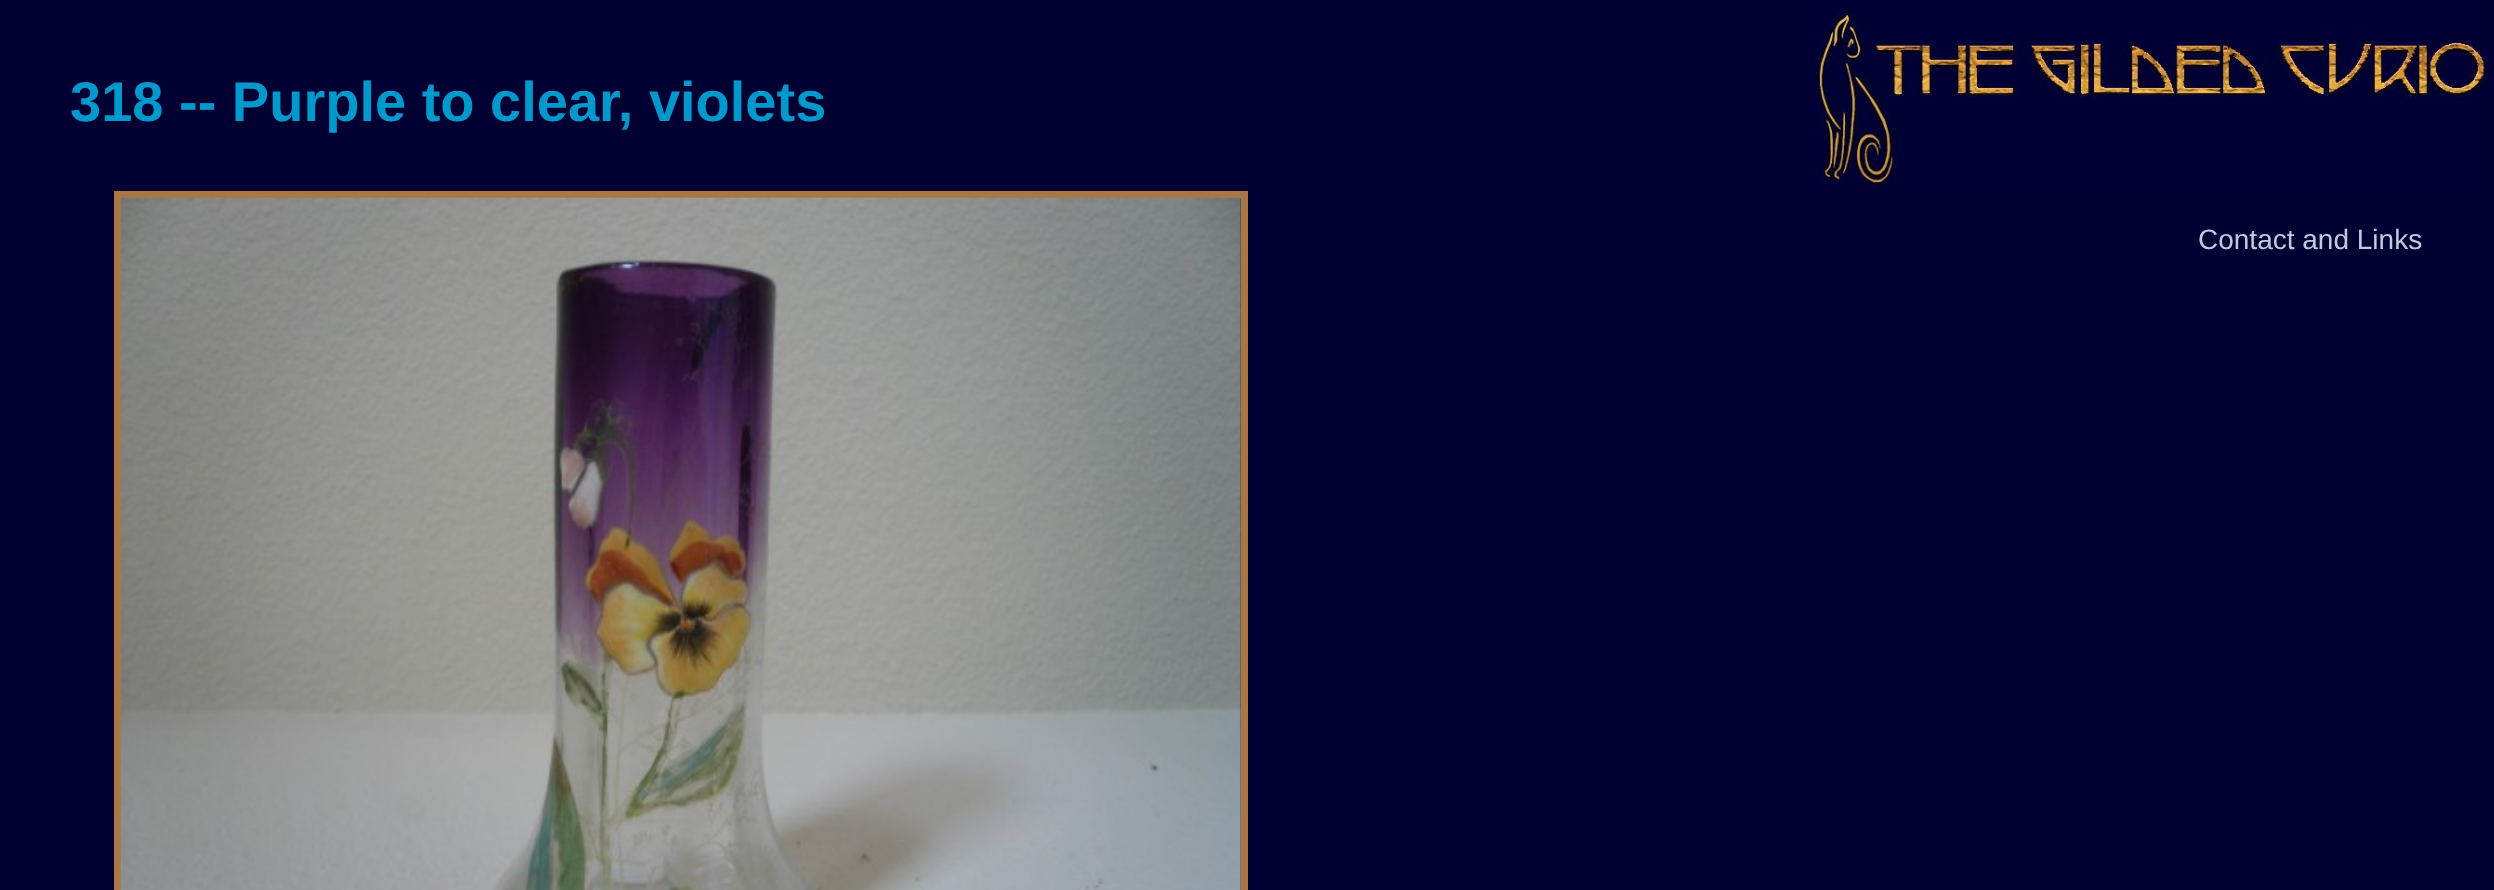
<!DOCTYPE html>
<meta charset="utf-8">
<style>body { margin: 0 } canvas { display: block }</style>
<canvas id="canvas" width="2494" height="890"></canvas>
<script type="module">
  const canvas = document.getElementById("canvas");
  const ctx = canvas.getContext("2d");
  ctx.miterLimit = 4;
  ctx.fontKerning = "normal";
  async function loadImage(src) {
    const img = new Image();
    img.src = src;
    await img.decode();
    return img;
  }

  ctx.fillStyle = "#000033";
  ctx.fillRect(0, 0, 2494, 890);
  ctx.font = "bold 56px Liberation Sans";
  ctx.fillStyle = "#0099cc";
  ctx.fillText("318 -- Purple to clear, violets", 70, 121);
  ctx.strokeStyle = "#aa7744";
  ctx.lineWidth = 7;
  ctx.strokeRect(117.5, 194.5, 1127, 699);
  ctx.drawImage(await loadImage("img1.png"), 120, 197, 1121, 693);
  ctx.drawImage(await loadImage("img2.png"), 1808, 0, 684, 189);
  ctx.font = "28px Liberation Sans";
  ctx.fillStyle = "#bbccdd";
  ctx.fillText("Contact and Links", 2198, 249);
</script>
